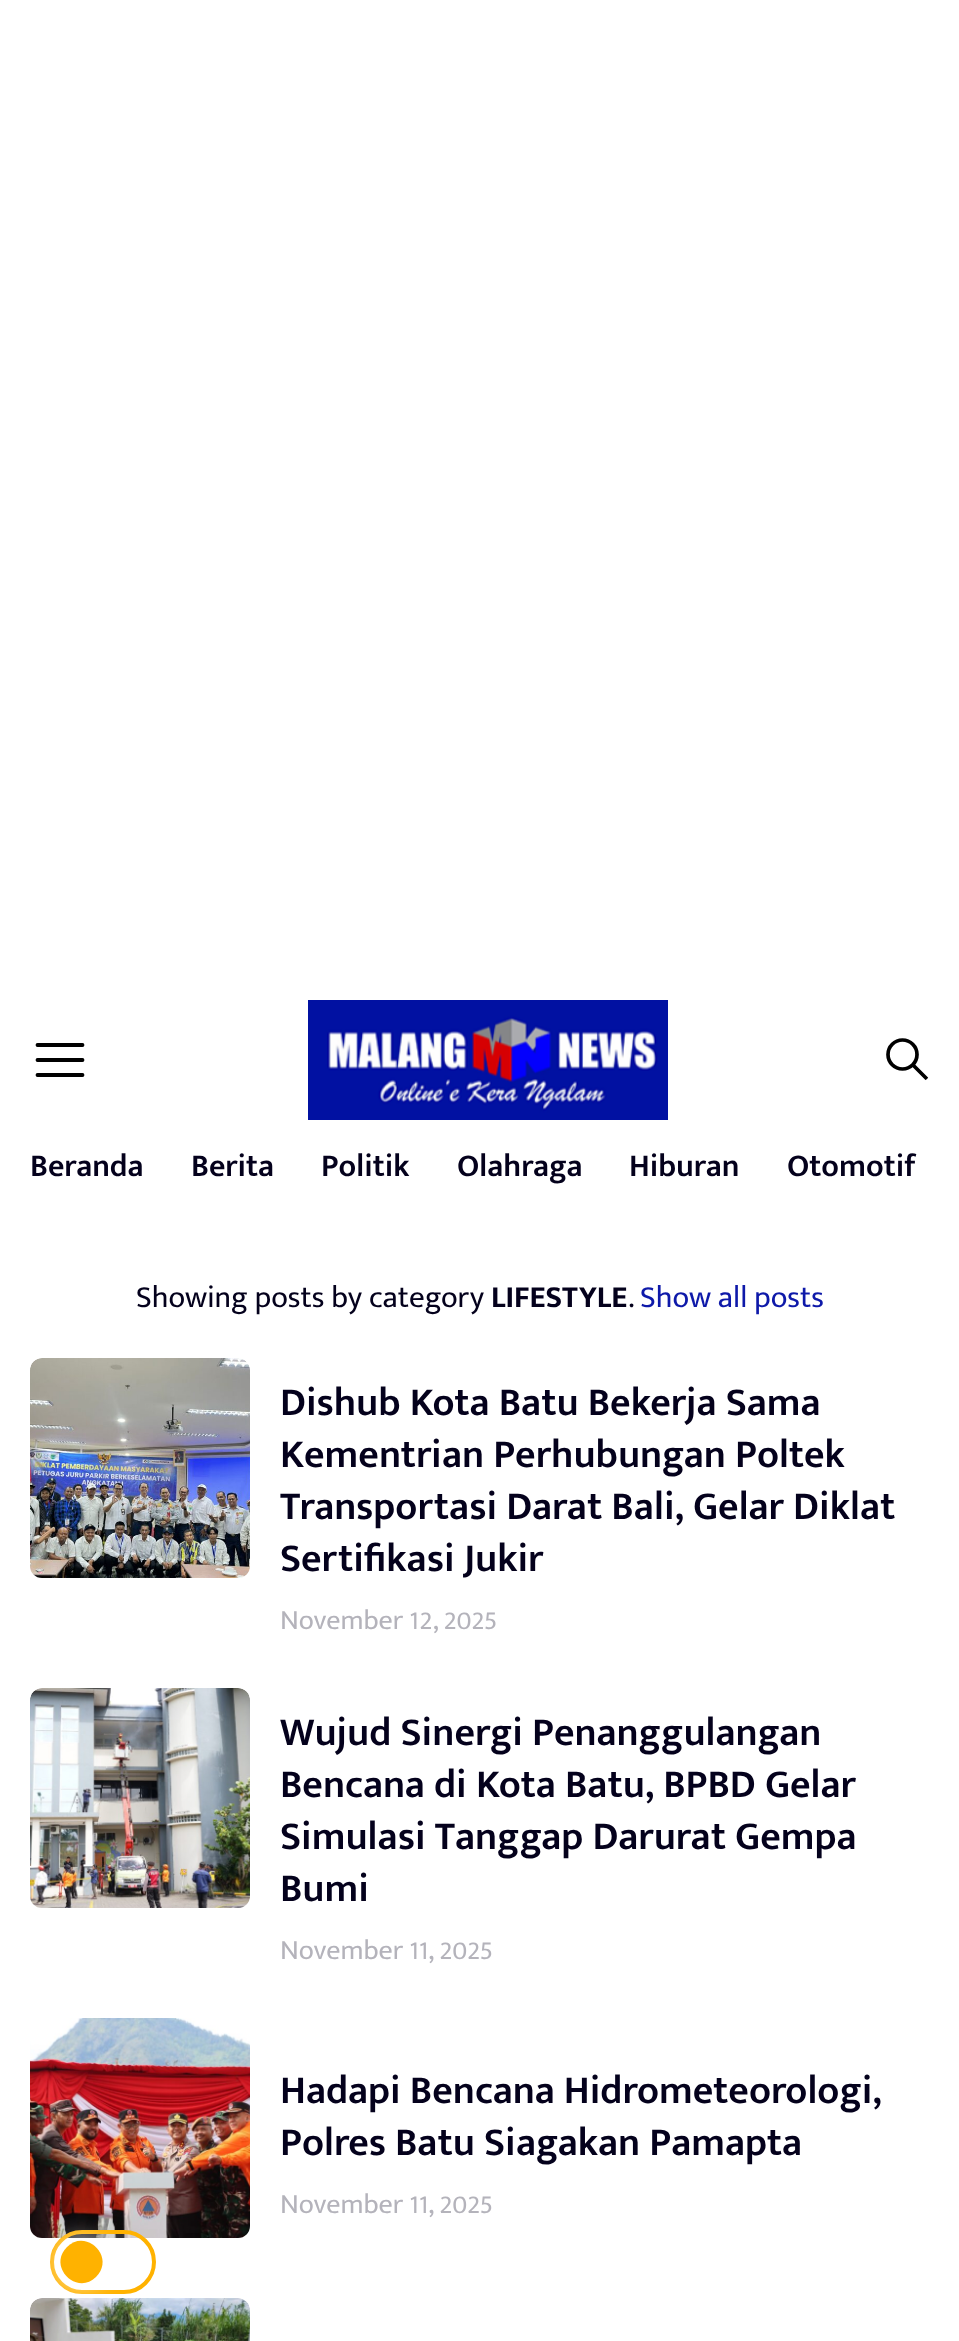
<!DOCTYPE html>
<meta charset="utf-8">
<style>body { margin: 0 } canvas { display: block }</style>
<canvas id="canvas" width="959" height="2341"></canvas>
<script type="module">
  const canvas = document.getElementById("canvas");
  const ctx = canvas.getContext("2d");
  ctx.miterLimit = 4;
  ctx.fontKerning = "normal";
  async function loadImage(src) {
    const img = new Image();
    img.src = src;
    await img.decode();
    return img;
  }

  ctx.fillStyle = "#ffffff";
  ctx.fillRect(0, 0, 959, 2341);
  ctx.beginPath();
  ctx.moveTo(37.5, 1045);
  ctx.lineTo(82.5, 1045);
  ctx.moveTo(37.5, 1060);
  ctx.lineTo(82.5, 1060);
  ctx.moveTo(37.5, 1075);
  ctx.lineTo(82.5, 1075);
  ctx.strokeStyle = "#000000";
  ctx.lineWidth = 3.8;
  ctx.lineCap = "round";
  ctx.lineJoin = "round";
  ctx.stroke();
  ctx.drawImage(await loadImage("img1.png"), 308, 1000, 360, 120);
  ctx.beginPath();
  ctx.arc(902.5, 1054.5, 14.5, 0, Math.PI * 2);
  ctx.lineWidth = 3.7;
  ctx.stroke();
  ctx.save();
  ctx.beginPath();
  ctx.roundRect(886, 1038, 44, 44, 10);
  ctx.clip();
  ctx.beginPath();
  ctx.moveTo(913.5, 1065.5);
  ctx.lineTo(928, 1080);
  ctx.stroke();
  ctx.restore();
  ctx.font = "600 32px Mukta Mahee";
  ctx.fillStyle = "#04011c";
  ctx.fillText("Beranda", 30, 1176);
  ctx.fillText("Berita", 191, 1176);
  ctx.fillText("Politik", 321, 1176);
  ctx.fillText("Olahraga", 457, 1176);
  ctx.fillText("Hiburan", 629, 1176);
  ctx.fillText("Otomotif", 787, 1176);
  ctx.font = "31px Mukta Mahee";
  ctx.fillText("Showing posts by category", 136, 1307);
  ctx.font = "bold 31px Mukta Mahee";
  ctx.fillText("LIFESTYLE", 491, 1307);
  ctx.font = "31px Mukta Mahee";
  ctx.fillText(".", 628, 1307);
  ctx.fillStyle = "#0e19a9";
  ctx.fillText("Show all posts", 640, 1307);
  ctx.drawImage(await loadImage("img2.png"), 30, 1358, 220, 220);
  ctx.font = "600 40px Mukta Mahee";
  ctx.fillStyle = "#04011c";
  ctx.fillText("Dishub Kota Batu Bekerja Sama", 280, 1415);
  ctx.fillText("Kementrian Perhubungan Poltek", 280, 1467);
  ctx.fillText("Transportasi Darat Bali, Gelar Diklat", 280, 1519);
  ctx.fillText("Sertifikasi Jukir", 280, 1571);
  ctx.font = "28px Mukta Mahee";
  ctx.fillStyle = "#b4b3bb";
  ctx.fillText("November 12, 2025", 280, 1629);
  ctx.drawImage(await loadImage("img3.png"), 30, 1688, 220, 220);
  ctx.font = "600 40px Mukta Mahee";
  ctx.fillStyle = "#04011c";
  ctx.fillText("Wujud Sinergi Penanggulangan", 280, 1745);
  ctx.fillText("Bencana di Kota Batu, BPBD Gelar", 280, 1797);
  ctx.fillText("Simulasi Tanggap Darurat Gempa", 280, 1849);
  ctx.fillText("Bumi", 280, 1901);
  ctx.font = "28px Mukta Mahee";
  ctx.fillStyle = "#b4b3bb";
  ctx.fillText("November 11, 2025", 280, 1959);
  ctx.drawImage(await loadImage("img4.png"), 30, 2018, 220, 220);
  ctx.font = "600 40px Mukta Mahee";
  ctx.fillStyle = "#04011c";
  ctx.fillText("Hadapi Bencana Hidrometeorologi,", 280, 2103);
  ctx.fillText("Polres Batu Siagakan Pamapta", 280, 2155);
  ctx.font = "28px Mukta Mahee";
  ctx.fillStyle = "#b4b3bb";
  ctx.fillText("November 11, 2025", 280, 2213);
  ctx.drawImage(await loadImage("img5.png"), 30, 2298, 220, 43);
  ctx.fillStyle = "rgba(255, 255, 255, 0.15)";
  ctx.beginPath();
  ctx.roundRect(52, 2232, 102, 60, 30);
  ctx.fill();
  ctx.strokeStyle = "#ffb200";
  ctx.lineWidth = 4;
  ctx.lineJoin = "miter";
  ctx.stroke();
  ctx.fillStyle = "#ffffff";
  ctx.filter = "blur(13px)";
  ctx.beginPath();
  ctx.roundRect(60, 2242, 42, 42, 21);
  ctx.fill();
  ctx.filter = "none";
  ctx.fillStyle = "#ffb200";
  ctx.beginPath();
  ctx.moveTo(67, 2247);
  ctx.bezierCurveTo(86, 2228, 116, 2257, 96, 2277);
  ctx.bezierCurveTo(77, 2296, 47, 2267, 67, 2247);
  ctx.closePath();
  ctx.fill();
</script>
